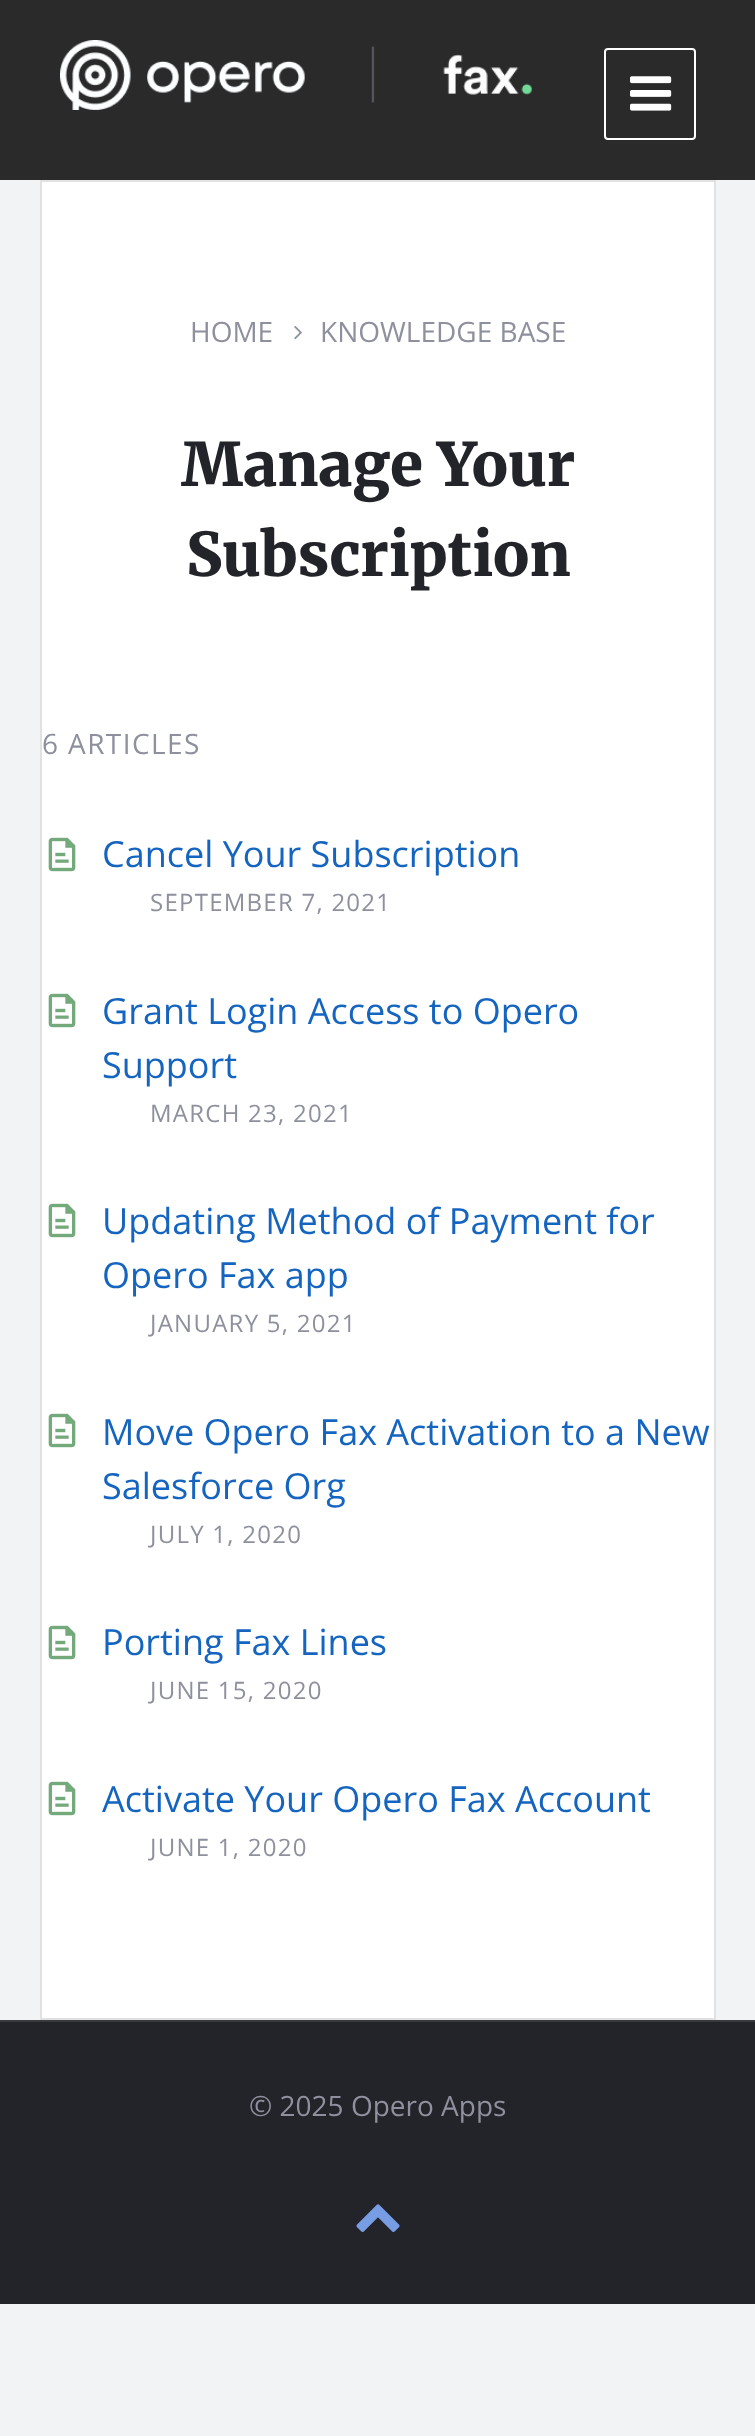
<!DOCTYPE html>
<meta charset="utf-8">
<style>body { margin: 0 } canvas { display: block }</style>
<canvas id="canvas" width="755" height="2436"></canvas>
<script type="module">
  const canvas = document.getElementById("canvas");
  const ctx = canvas.getContext("2d");
  ctx.miterLimit = 4;
  ctx.fontKerning = "normal";
  async function loadImage(src) {
    const img = new Image();
    img.src = src;
    await img.decode();
    return img;
  }

  ctx.fillStyle = "#f1f3f5";
  ctx.fillRect(0, 0, 755, 2436);
  ctx.fillStyle = "#2a2a2a";
  ctx.fillRect(0, 0, 755, 180);
  ctx.drawImage(await loadImage("img1.png"), 60, 40, 473, 70);
  ctx.beginPath();
  ctx.roundRect(605, 49, 90, 90, 3);
  ctx.strokeStyle = "#ffffff";
  ctx.lineWidth = 2;
  ctx.stroke();
  ctx.drawImage(await loadImage("img2.png"), 630, 76, 42, 35);
  ctx.fillStyle = "#ffffff";
  ctx.beginPath();
  ctx.rect(41, 181, 674, 1838);
  ctx.fill();
  ctx.strokeStyle = "#e1e1e1";
  ctx.stroke();
  ctx.font = "28px Open Sans";
  ctx.fillStyle = "#8e909d";
  ctx.fillText("HOME", 190, 342);
  ctx.drawImage(await loadImage("img3.png"), 294, 326, 8, 14);
  ctx.fillText("KNOWLEDGE BASE", 320, 342);
  ctx.font = "900 60px Merriweather";
  ctx.fillStyle = "#232429";
  ctx.fillText("Manage Your", 181, 486);
  ctx.fillText("Subscription", 186, 576);
  ctx.letterSpacing = "1.4px";
  ctx.font = "28px Open Sans";
  ctx.fillStyle = "#8e909d";
  ctx.fillText("6 ARTICLES", 42, 754);
  ctx.drawImage(await loadImage("img4.png"), 48, 837, 28, 35);
  ctx.letterSpacing = "0px";
  ctx.font = "36px Open Sans";
  ctx.fillStyle = "#1565c0";
  ctx.fillText("Cancel Your Subscription", 102, 867);
  ctx.letterSpacing = "1.25px";
  ctx.font = "24px Open Sans";
  ctx.fillStyle = "#8e909d";
  ctx.fillText("SEPTEMBER 7, 2021", 150, 911);
  ctx.drawImage(await loadImage("img4.png"), 48, 993, 28, 35);
  ctx.letterSpacing = "0px";
  ctx.font = "36px Open Sans";
  ctx.fillStyle = "#1565c0";
  ctx.fillText("Grant Login Access to Opero", 102, 1024);
  ctx.fillText("Support", 102, 1078);
  ctx.letterSpacing = "1.25px";
  ctx.font = "24px Open Sans";
  ctx.fillStyle = "#8e909d";
  ctx.fillText("MARCH 23, 2021", 150, 1122);
  ctx.drawImage(await loadImage("img4.png"), 48, 1203, 28, 35);
  ctx.letterSpacing = "0px";
  ctx.font = "36px Open Sans";
  ctx.fillStyle = "#1565c0";
  ctx.fillText("Updating Method of Payment for", 102, 1234);
  ctx.fillText("Opero Fax app", 102, 1288);
  ctx.letterSpacing = "1.25px";
  ctx.font = "24px Open Sans";
  ctx.fillStyle = "#8e909d";
  ctx.fillText("JANUARY 5, 2021", 150, 1332);
  ctx.drawImage(await loadImage("img4.png"), 48, 1413, 28, 35);
  ctx.letterSpacing = "0px";
  ctx.font = "36px Open Sans";
  ctx.fillStyle = "#1565c0";
  ctx.fillText("Move Opero Fax Activation to a New", 102, 1445);
  ctx.fillText("Salesforce Org", 102, 1499);
  ctx.letterSpacing = "1.25px";
  ctx.font = "24px Open Sans";
  ctx.fillStyle = "#8e909d";
  ctx.fillText("JULY 1, 2020", 150, 1543);
  ctx.drawImage(await loadImage("img4.png"), 48, 1625, 28, 35);
  ctx.letterSpacing = "0px";
  ctx.font = "36px Open Sans";
  ctx.fillStyle = "#1565c0";
  ctx.fillText("Porting Fax Lines", 102, 1655);
  ctx.letterSpacing = "1.25px";
  ctx.font = "24px Open Sans";
  ctx.fillStyle = "#8e909d";
  ctx.fillText("JUNE 15, 2020", 150, 1699);
  ctx.drawImage(await loadImage("img4.png"), 48, 1781, 28, 35);
  ctx.letterSpacing = "0px";
  ctx.font = "36px Open Sans";
  ctx.fillStyle = "#1565c0";
  ctx.fillText("Activate Your Opero Fax Account", 102, 1812);
  ctx.letterSpacing = "1.25px";
  ctx.font = "24px Open Sans";
  ctx.fillStyle = "#8e909d";
  ctx.fillText("JUNE 1, 2020", 150, 1856);
  ctx.fillStyle = "#232429";
  ctx.fillRect(0, 2022, 755, 282);
  ctx.fillStyle = "#393a3e";
  ctx.fillRect(0, 2020, 755, 2);
  ctx.letterSpacing = "0px";
  ctx.font = "28px Open Sans";
  ctx.fillStyle = "#8e909d";
  ctx.fillText("© 2025 Opero Apps", 249, 2116);
  ctx.drawImage(await loadImage("img5.png"), 356, 2204, 44, 28);
</script>
